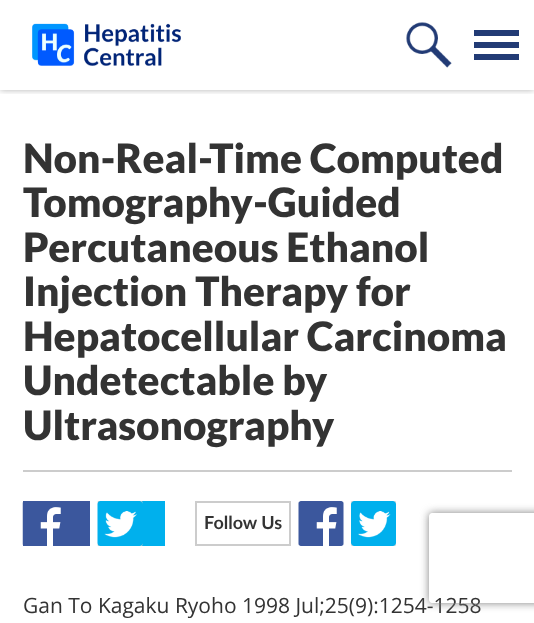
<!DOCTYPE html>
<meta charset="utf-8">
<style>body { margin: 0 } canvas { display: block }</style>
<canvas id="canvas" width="534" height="623"></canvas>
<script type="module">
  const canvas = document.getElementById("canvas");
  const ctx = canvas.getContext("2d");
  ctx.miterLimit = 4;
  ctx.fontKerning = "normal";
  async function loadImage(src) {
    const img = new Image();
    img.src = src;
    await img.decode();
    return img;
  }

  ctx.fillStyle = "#ffffff";
  ctx.fillRect(0, 0, 534, 623);
  ctx.save();
  ctx.beginPath();
  ctx.rect(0, 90, 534, 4);
  ctx.clip();
  ctx.fillStyle = "rgba(0, 0, 0, 0.3)";
  ctx.filter = "blur(3px)";
  ctx.beginPath();
  ctx.rect(0, 0, 534, 90);
  ctx.fill();
  ctx.filter = "none";
  ctx.restore();
  ctx.drawImage(await loadImage("img1.png"), 32, 23, 149, 43);
  ctx.drawImage(await loadImage("img2.png"), 406, 22, 46, 46);
  ctx.drawImage(await loadImage("img3.png"), 474, 30, 45, 30);
  ctx.fillStyle = "#cccccc";
  ctx.fillRect(23, 470, 489, 2);
  ctx.font = "900 40.5px Lato";
  ctx.fillStyle = "#333333";
  ctx.fillText("Non-Real-Time Computed", 23, 173);
  ctx.fillText("Tomography-Guided", 23, 217);
  ctx.fillText("Percutaneous Ethanol", 23, 262);
  ctx.fillText("Injection Therapy for", 23, 306);
  ctx.fillText("Hepatocellular Carcinoma", 23, 351);
  ctx.fillText("Undetectable by", 23, 395);
  ctx.fillText("Ultrasonography", 23, 440);
  ctx.fillStyle = "#3b579d";
  ctx.fillRect(23, 501, 67, 45);
  ctx.drawImage(await loadImage("img4.png"), 22, 502, 39, 44);
  ctx.fillStyle = "#00b0ed";
  ctx.fillRect(98, 501, 67, 45);
  ctx.drawImage(await loadImage("img5.png"), 97, 501, 46, 45);
  ctx.strokeStyle = "#cccccc";
  ctx.lineWidth = 2;
  ctx.strokeRect(196, 502, 94, 43);
  ctx.font = "bold 18px Lato";
  ctx.fillStyle = "#333333";
  ctx.fillText("Follow Us", 204, 529);
  ctx.drawImage(await loadImage("img6.png"), 298, 501, 46, 45);
  ctx.drawImage(await loadImage("img7.png"), 351, 501, 45, 45);
  ctx.font = "21px Open Sans";
  ctx.fillText("Gan To Kagaku Ryoho 1998 Jul;25(9):1254-1258", 23, 613);
  ctx.save();
  ctx.beginPath();
  ctx.moveTo(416, 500);
  ctx.lineTo(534, 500);
  ctx.lineTo(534, 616);
  ctx.lineTo(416, 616);
  ctx.closePath();
  ctx.moveTo(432, 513);
  ctx.lineTo(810, 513);
  ctx.bezierCurveTo(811.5, 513, 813, 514.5, 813, 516);
  ctx.lineTo(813, 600);
  ctx.bezierCurveTo(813, 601.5, 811.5, 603, 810, 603);
  ctx.lineTo(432, 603);
  ctx.bezierCurveTo(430.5, 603, 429, 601.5, 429, 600);
  ctx.lineTo(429, 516);
  ctx.bezierCurveTo(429, 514.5, 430.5, 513, 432, 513);
  ctx.closePath();
  ctx.clip("evenodd");
  ctx.fillStyle = "#808080";
  ctx.filter = "blur(4px)";
  ctx.beginPath();
  ctx.roundRect(429, 513, 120, 90, 3);
  ctx.fill();
  ctx.filter = "none";
  ctx.restore();
</script>
